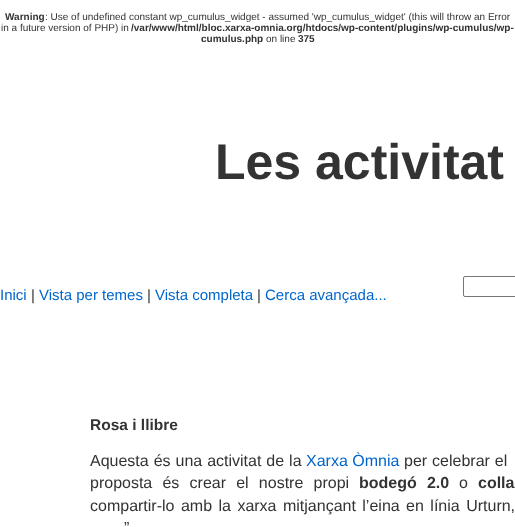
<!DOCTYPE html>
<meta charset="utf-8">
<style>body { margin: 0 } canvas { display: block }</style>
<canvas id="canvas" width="515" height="527"></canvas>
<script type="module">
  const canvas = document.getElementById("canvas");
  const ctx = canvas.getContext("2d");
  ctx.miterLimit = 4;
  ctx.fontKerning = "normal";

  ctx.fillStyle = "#ffffff";
  ctx.fillRect(0, 0, 515, 527);
  ctx.font = "bold 10px Liberation Sans";
  ctx.fillStyle = "#333333";
  ctx.fillText("Warning", 5, 20);
  ctx.font = "10px Liberation Sans";
  ctx.fillText(": Use of undefined constant wp_cumulus_widget - assumed 'wp_cumulus_widget' (this will throw an Error", 45, 20);
  ctx.fillText("in a future version of PHP) in", 1, 31);
  ctx.font = "bold 10px Liberation Sans";
  ctx.fillText("/var/www/html/bloc.xarxa-omnia.org/htdocs/wp-content/plugins/wp-cumulus/wp-", 131, 31);
  ctx.fillText("cumulus.php", 201, 42);
  ctx.font = "10px Liberation Sans";
  ctx.fillText("on line", 266, 42);
  ctx.font = "bold 10px Liberation Sans";
  ctx.fillText("375", 298, 42);
  ctx.font = "bold 50px Liberation Sans";
  ctx.fillText("Les activitat", 215, 179);
  ctx.font = "15px Liberation Sans";
  ctx.fillStyle = "#0066cc";
  ctx.fillText("Inici", 0, 300);
  ctx.fillStyle = "#333333";
  ctx.fillText("|", 31, 300);
  ctx.fillStyle = "#0066cc";
  ctx.fillText("Vista per temes", 39, 300);
  ctx.fillStyle = "#333333";
  ctx.fillText("|", 147, 300);
  ctx.fillStyle = "#0066cc";
  ctx.fillText("Vista completa", 155, 300);
  ctx.fillStyle = "#333333";
  ctx.fillText("|", 257, 300);
  ctx.fillStyle = "#0066cc";
  ctx.fillText("Cerca avançada...", 265, 300);
  ctx.beginPath();
  ctx.roundRect(463.5, 276.5, 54, 20, 1.5);
  ctx.strokeStyle = "#767676";
  ctx.stroke();
  ctx.font = "bold 15.5px Liberation Sans";
  ctx.fillStyle = "#333333";
  ctx.fillText("Rosa i llibre", 90, 430);
  ctx.wordSpacing = "0.5px";
  ctx.font = "16px Liberation Sans";
  ctx.fillText("Aquesta és una activitat de la", 90, 466);
  ctx.wordSpacing = "0px";
  ctx.fillStyle = "#0066cc";
  ctx.fillText("Xarxa Òmnia", 306, 466);
  ctx.wordSpacing = "0.5px";
  ctx.fillStyle = "#333333";
  ctx.fillText("per celebrar el", 404, 466);
  ctx.wordSpacing = "5.75px";
  ctx.fillText("proposta és crear el nostre propi", 90, 488);
  ctx.font = "bold 16px Liberation Sans";
  ctx.fillText("bodegó 2.0", 359, 488);
  ctx.wordSpacing = "0px";
  ctx.font = "16px Liberation Sans";
  ctx.fillText("o", 459, 488);
  ctx.wordSpacing = "5.75px";
  ctx.font = "bold 16px Liberation Sans";
  ctx.fillText("colla", 478, 488);
  ctx.wordSpacing = "2px";
  ctx.font = "16px Liberation Sans";
  ctx.fillText("compartir-lo amb la xarxa mitjançant l’eina en línia Urturn,", 90, 511);
  ctx.wordSpacing = "0px";
  ctx.fillText("”", 124, 533);
</script>
